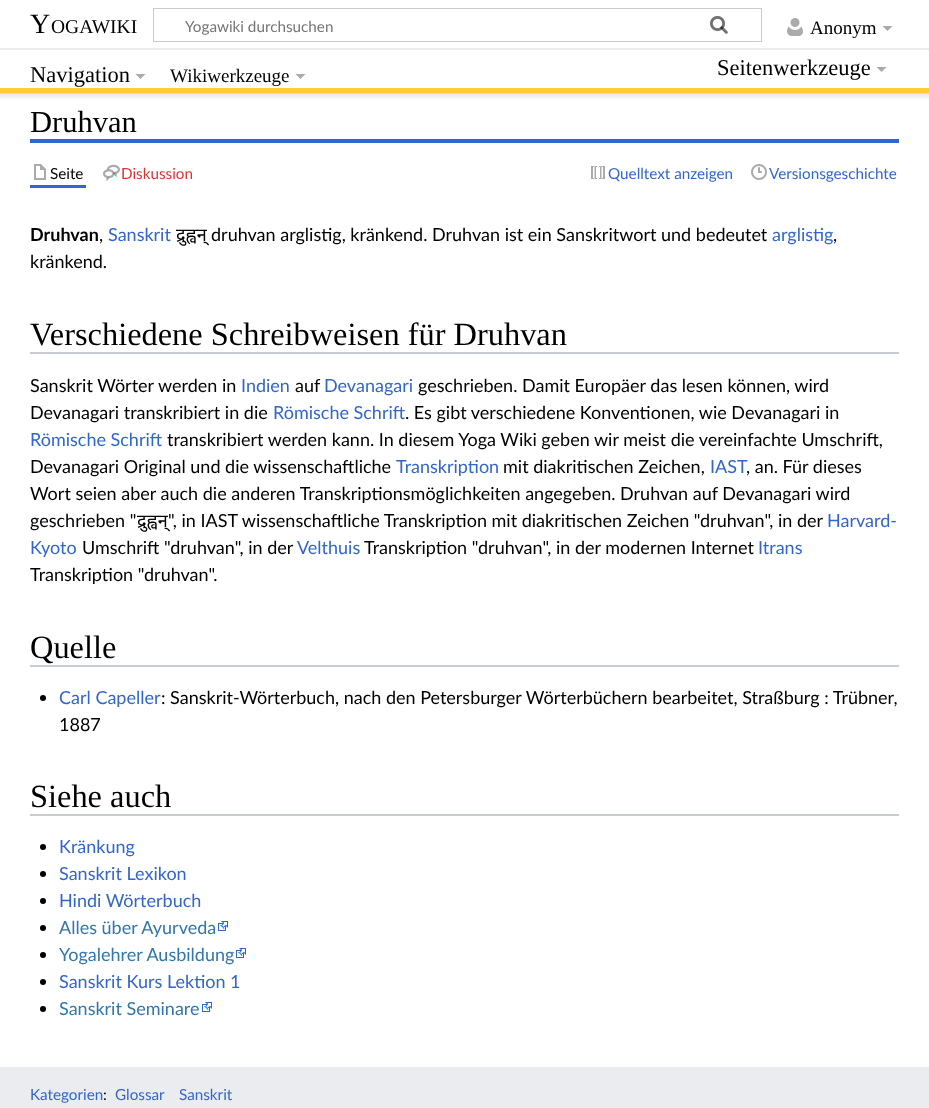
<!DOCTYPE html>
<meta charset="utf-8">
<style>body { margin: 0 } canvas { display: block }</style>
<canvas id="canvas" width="929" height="1108"></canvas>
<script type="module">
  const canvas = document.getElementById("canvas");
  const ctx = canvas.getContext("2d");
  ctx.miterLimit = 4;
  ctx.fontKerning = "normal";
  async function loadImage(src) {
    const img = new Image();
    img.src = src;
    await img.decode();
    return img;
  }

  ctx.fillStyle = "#eaecf0";
  ctx.fillRect(0, 0, 929, 1108);
  ctx.fillStyle = "#ffffff";
  ctx.fillRect(0, 93, 929, 974);
  ctx.fillStyle = "rgba(0, 0, 0, 0.2)";
  ctx.filter = "blur(1px)";
  ctx.beginPath();
  ctx.rect(0, 48, 929, 45);
  ctx.fill();
  ctx.filter = "none";
  ctx.fillStyle = "rgba(0, 0, 0, 0.07)";
  ctx.filter = "blur(1.5px)";
  ctx.beginPath();
  ctx.rect(-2, 49, 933, 49);
  ctx.fill();
  ctx.filter = "none";
  ctx.fillStyle = "#ffffff";
  ctx.fillRect(0, 0, 929, 48);
  ctx.font = "28px Liberation Serif";
  ctx.fillStyle = "#000000";
  ctx.fillText("Y", 30, 33);
  ctx.font = "19.5px Liberation Serif";
  ctx.fillText("OGAWIKI", 51, 33);
  ctx.strokeStyle = "#c8ccd1";
  ctx.strokeRect(153.5, 8.5, 608, 33);
  ctx.drawImage(await loadImage("img1.png"), 710, 16, 18, 18);
  ctx.font = "15.25px Lato";
  ctx.fillStyle = "#757575";
  ctx.fillText("Yogawiki durchsuchen", 185, 32);
  ctx.drawImage(await loadImage("img2.png"), 710, 16, 18, 18);
  ctx.drawImage(await loadImage("img3.png"), 787, 18, 16, 18);
  ctx.font = "19px Liberation Serif";
  ctx.fillStyle = "#000000";
  ctx.fillText("Anonym", 810, 34);
  ctx.fillStyle = "#ababab";
  ctx.beginPath();
  ctx.moveTo(892.5, 26);
  ctx.lineTo(887.5, 31);
  ctx.lineTo(882.5, 26);
  ctx.closePath();
  ctx.fill();
  ctx.fillStyle = "#ffffff";
  ctx.fillRect(0, 50, 929, 38);
  ctx.fillStyle = "#eaecf0";
  ctx.fillRect(0, 48, 929, 2);
  ctx.fillStyle = "#ffcc32";
  ctx.fillRect(0, 88, 929, 5);
  ctx.font = "22.5px Liberation Serif";
  ctx.fillStyle = "#000000";
  ctx.fillText("Navigation", 30, 82);
  ctx.fillStyle = "#ababab";
  ctx.beginPath();
  ctx.moveTo(145.5, 74);
  ctx.lineTo(140.5, 79);
  ctx.lineTo(135.5, 74);
  ctx.closePath();
  ctx.fill();
  ctx.font = "19px Liberation Serif";
  ctx.fillStyle = "#000000";
  ctx.fillText("Wikiwerkzeuge", 170, 82);
  ctx.fillStyle = "#ababab";
  ctx.beginPath();
  ctx.moveTo(305.5, 74);
  ctx.lineTo(300.5, 79);
  ctx.lineTo(295.5, 74);
  ctx.closePath();
  ctx.fill();
  ctx.font = "22.5px Liberation Serif";
  ctx.fillStyle = "#000000";
  ctx.fillText("Seitenwerkzeuge", 717, 75);
  ctx.fillStyle = "#ababab";
  ctx.beginPath();
  ctx.moveTo(886.5, 67);
  ctx.lineTo(881.5, 72);
  ctx.lineTo(876.5, 67);
  ctx.closePath();
  ctx.fill();
  ctx.fillStyle = "#3366cc";
  ctx.fillRect(30, 139, 869, 4);
  ctx.font = "30.5px Liberation Serif";
  ctx.fillStyle = "#000000";
  ctx.fillText("Druhvan", 30, 132);
  ctx.fillStyle = "#3366cc";
  ctx.fillRect(30, 185, 56, 3);
  ctx.drawImage(await loadImage("img4.png"), 34, 164, 12, 16);
  ctx.font = "15.25px Lato";
  ctx.fillStyle = "#000000";
  ctx.fillText("Seite", 50, 179);
  ctx.drawImage(await loadImage("img5.png"), 103, 164, 17, 17);
  ctx.fillStyle = "#dd3333";
  ctx.fillText("Diskussion", 121, 179);
  ctx.drawImage(await loadImage("img6.png"), 591, 166, 14, 13);
  ctx.fillStyle = "#3366cc";
  ctx.fillText("Quelltext anzeigen", 608, 179);
  ctx.drawImage(await loadImage("img7.png"), 751, 164, 16, 16);
  ctx.fillText("Versionsgeschichte", 769, 179);
  ctx.font = "bold 18px Lato";
  ctx.fillStyle = "#000000";
  ctx.fillText("Druhvan", 30, 241);
  ctx.font = "18px Lato";
  ctx.fillText(",", 99, 241);
  ctx.fillStyle = "#3366cc";
  ctx.fillText("Sanskrit", 108, 241);
  ctx.font = "18px Noto Sans";
  ctx.fillStyle = "#000000";
  ctx.fillText("द्रुह्वन्", 176, 241);
  ctx.font = "18px Lato";
  ctx.fillText("druhvan arglistig, kränkend. Druhvan ist ein Sanskritwort und bedeutet", 211, 241);
  ctx.fillStyle = "#3366cc";
  ctx.fillText("arglistig", 772, 241);
  ctx.fillStyle = "#000000";
  ctx.fillText(",", 833, 241);
  ctx.fillText("kränkend.", 30, 268);
  ctx.font = "32.4px Liberation Serif";
  ctx.fillText("Verschiedene Schreibweisen für Druhvan", 30, 345);
  ctx.fillStyle = "#c8ccd1";
  ctx.fillRect(30, 352, 869, 2);
  ctx.font = "18px Lato";
  ctx.fillStyle = "#000000";
  ctx.fillText("Sanskrit Wörter werden in", 30, 392);
  ctx.fillStyle = "#3366cc";
  ctx.fillText("Indien", 241, 392);
  ctx.fillStyle = "#000000";
  ctx.fillText("auf", 295, 392);
  ctx.fillStyle = "#3366cc";
  ctx.fillText("Devanagari", 324, 392);
  ctx.fillStyle = "#000000";
  ctx.fillText("geschrieben. Damit Europäer das lesen können, wird", 418, 392);
  ctx.fillText("Devanagari transkribiert in die", 30, 419);
  ctx.fillStyle = "#3366cc";
  ctx.fillText("Römische Schrift", 273, 419);
  ctx.fillStyle = "#000000";
  ctx.fillText(". Es gibt verschiedene Konventionen, wie Devanagari in", 405, 419);
  ctx.fillStyle = "#3366cc";
  ctx.fillText("Römische Schrift", 30, 446);
  ctx.fillStyle = "#000000";
  ctx.fillText("transkribiert werden kann. In diesem Yoga Wiki geben wir meist die vereinfachte Umschrift,", 167, 446);
  ctx.fillText("Devanagari Original und die wissenschaftliche", 30, 473);
  ctx.fillStyle = "#3366cc";
  ctx.fillText("Transkription", 396, 473);
  ctx.fillStyle = "#000000";
  ctx.fillText("mit diakritischen Zeichen,", 503, 473);
  ctx.fillStyle = "#3366cc";
  ctx.fillText("IAST", 710, 473);
  ctx.fillStyle = "#000000";
  ctx.fillText(", an. Für dieses", 746, 473);
  ctx.fillText("Wort seien aber auch die anderen Transkriptionsmöglichkeiten angegeben. Druhvan auf Devanagari wird", 30, 500);
  ctx.fillText("geschrieben \"", 30, 527);
  ctx.font = "18px Noto Sans";
  ctx.fillText("द्रुह्वन्", 137, 527);
  ctx.font = "18px Lato";
  ctx.fillText("\", in IAST wissenschaftliche Transkription mit diakritischen Zeichen \"druhvan\", in der", 168, 527);
  ctx.fillStyle = "#3366cc";
  ctx.fillText("Harvard-", 827, 527);
  ctx.fillText("Kyoto", 30, 554);
  ctx.fillStyle = "#000000";
  ctx.fillText("Umschrift \"druhvan\", in der", 82, 554);
  ctx.fillStyle = "#3366cc";
  ctx.fillText("Velthuis", 297, 554);
  ctx.fillStyle = "#000000";
  ctx.fillText("Transkription \"druhvan\", in der modernen Internet", 364, 554);
  ctx.fillStyle = "#3366cc";
  ctx.fillText("Itrans", 758, 554);
  ctx.fillStyle = "#000000";
  ctx.fillText("Transkription \"druhvan\".", 30, 581);
  ctx.font = "32.4px Liberation Serif";
  ctx.fillText("Quelle", 30, 658);
  ctx.fillStyle = "#c8ccd1";
  ctx.fillRect(30, 665, 869, 2);
  ctx.fillStyle = "#000000";
  ctx.beginPath();
  ctx.arc(43, 698, 3, 0, Math.PI * 2);
  ctx.fill();
  ctx.font = "18px Lato";
  ctx.fillStyle = "#3366cc";
  ctx.fillText("Carl Capeller", 59, 704);
  ctx.fillStyle = "#000000";
  ctx.fillText(": Sanskrit-Wörterbuch, nach den Petersburger Wörterbüchern bearbeitet, Straßburg : Trübner,", 161, 704);
  ctx.fillText("1887", 59, 731);
  ctx.font = "32.4px Liberation Serif";
  ctx.fillText("Siehe auch", 30, 807);
  ctx.fillStyle = "#c8ccd1";
  ctx.fillRect(30, 814, 869, 2);
  ctx.fillStyle = "#000000";
  ctx.beginPath();
  ctx.arc(43, 847, 3, 0, Math.PI * 2);
  ctx.fill();
  ctx.font = "18px Lato";
  ctx.fillStyle = "#3366cc";
  ctx.fillText("Kränkung", 59, 853);
  ctx.fillStyle = "#000000";
  ctx.beginPath();
  ctx.arc(43, 874, 3, 0, Math.PI * 2);
  ctx.fill();
  ctx.fillStyle = "#3366cc";
  ctx.fillText("Sanskrit Lexikon", 59, 880);
  ctx.fillStyle = "#000000";
  ctx.beginPath();
  ctx.arc(43, 901, 3, 0, Math.PI * 2);
  ctx.fill();
  ctx.fillStyle = "#3366cc";
  ctx.fillText("Hindi Wörterbuch", 59, 907);
  ctx.fillStyle = "#000000";
  ctx.beginPath();
  ctx.arc(43, 928, 3, 0, Math.PI * 2);
  ctx.fill();
  ctx.fillStyle = "#3377aa";
  ctx.fillText("Alles über Ayurveda", 59, 934);
  ctx.drawImage(await loadImage("img8.png"), 218, 921, 10, 10);
  ctx.fillStyle = "#000000";
  ctx.beginPath();
  ctx.arc(43, 955, 3, 0, Math.PI * 2);
  ctx.fill();
  ctx.fillStyle = "#3377aa";
  ctx.fillText("Yogalehrer Ausbildung", 59, 961);
  ctx.drawImage(await loadImage("img8.png"), 236, 948, 10, 10);
  ctx.fillStyle = "#000000";
  ctx.beginPath();
  ctx.arc(43, 982, 3, 0, Math.PI * 2);
  ctx.fill();
  ctx.fillStyle = "#3366cc";
  ctx.fillText("Sanskrit Kurs Lektion 1", 59, 988);
  ctx.fillStyle = "#000000";
  ctx.beginPath();
  ctx.arc(43, 1009, 3, 0, Math.PI * 2);
  ctx.fill();
  ctx.fillStyle = "#3377aa";
  ctx.fillText("Sanskrit Seminare", 59, 1015);
  ctx.drawImage(await loadImage("img8.png"), 202, 1002, 10, 10);
  ctx.font = "15.25px Lato";
  ctx.fillStyle = "#3366cc";
  ctx.fillText("Kategorien", 30, 1100);
  ctx.fillStyle = "#000000";
  ctx.fillText(":", 103, 1100);
  ctx.fillStyle = "#3366cc";
  ctx.fillText("Glossar", 115, 1100);
  ctx.fillText("Sanskrit", 179, 1100);
</script>
